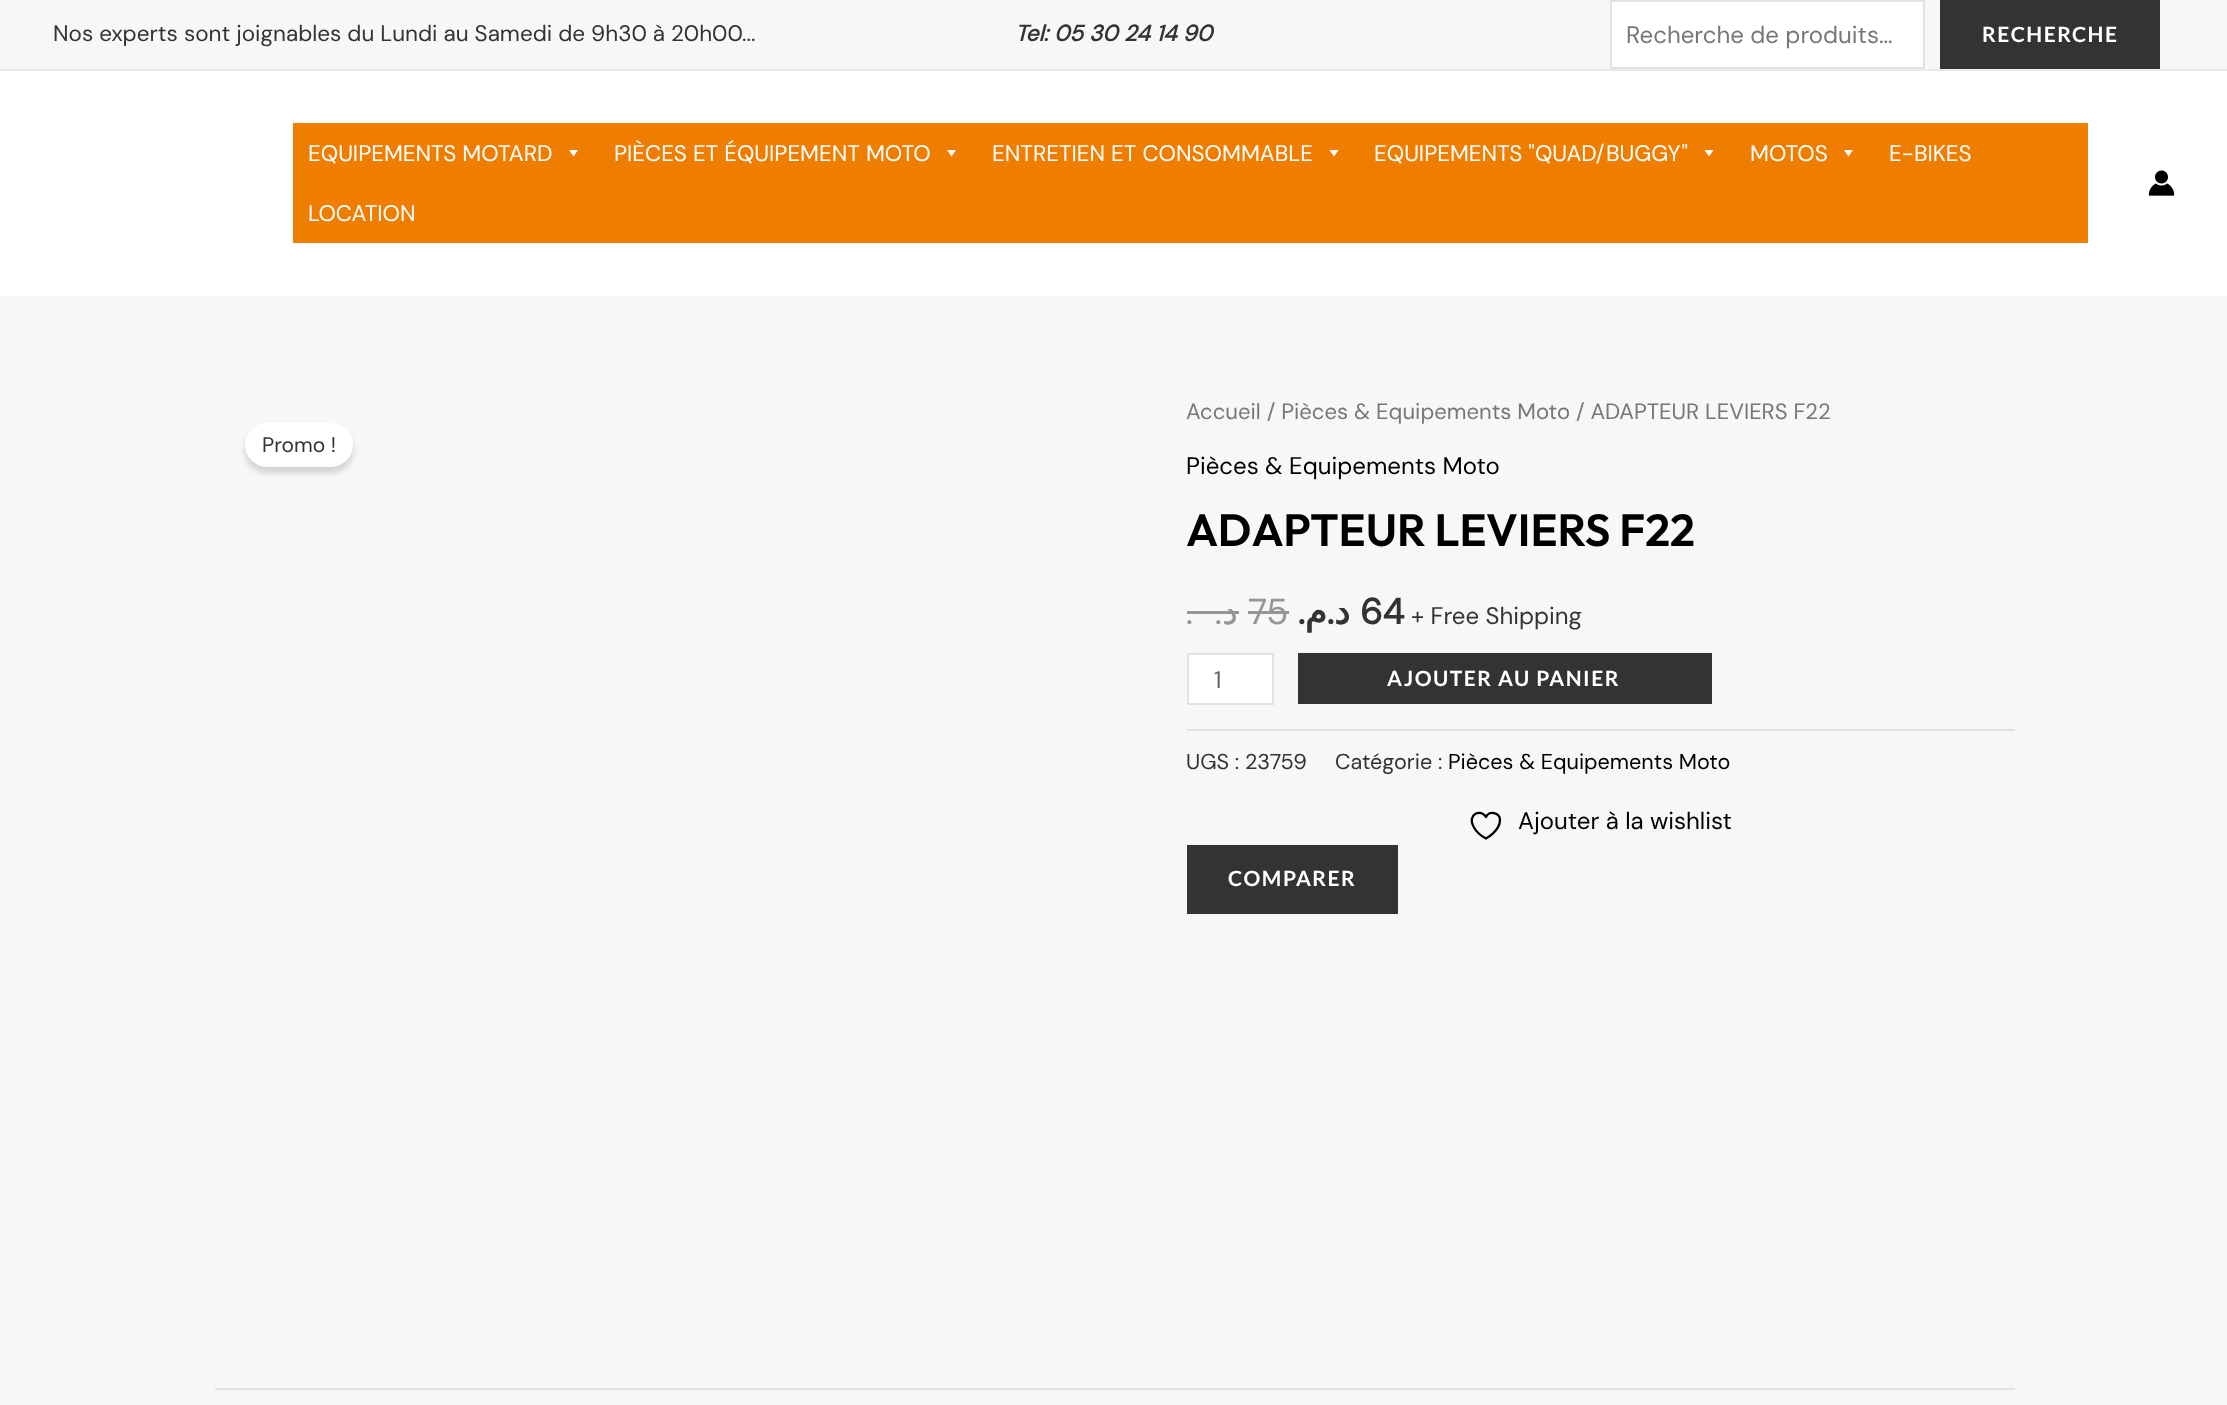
<!DOCTYPE html>
<meta charset="utf-8">
<style>body { margin: 0 } canvas { display: block }</style>
<canvas id="canvas" width="2227" height="1405"></canvas>
<script type="module">
  const canvas = document.getElementById("canvas");
  const ctx = canvas.getContext("2d");
  ctx.miterLimit = 4;
  ctx.fontKerning = "normal";
  async function loadImage(src) {
    const img = new Image();
    img.src = src;
    await img.decode();
    return img;
  }

  ctx.fillStyle = "#f5f7f9";
  ctx.fillRect(0, 0, 2227, 1405);
  ctx.fillStyle = "#eaeaea";
  ctx.fillRect(0, 69, 2227, 2);
  ctx.font = "22.5px DM Sans";
  ctx.fillStyle = "#333333";
  ctx.fillText("Nos experts sont joignables du Lundi au Samedi de 9h30 à 20h00...", 53, 41);
  ctx.font = "italic bold 22.5px DM Sans";
  ctx.fillText("Tel: 05 30 24 14 90", 1015, 41);
  ctx.fillStyle = "#ffffff";
  ctx.beginPath();
  ctx.rect(1611, 1, 313, 67);
  ctx.fill();
  ctx.strokeStyle = "#e2e2e2";
  ctx.lineWidth = 2;
  ctx.stroke();
  ctx.font = "24px DM Sans";
  ctx.fillStyle = "#777777";
  ctx.fillText("Recherche de produits…", 1626, 43);
  ctx.fillStyle = "#333333";
  ctx.fillRect(1940, 0, 220, 69);
  ctx.letterSpacing = "1.5px";
  ctx.font = "bold 21px Lato";
  ctx.fillStyle = "#ffffff";
  ctx.fillText("RECHERCHE", 1982, 42);
  ctx.fillRect(0, 71, 2227, 225);
  ctx.fillStyle = "#ef7d00";
  ctx.fillRect(293, 123, 1795, 120);
  ctx.letterSpacing = "0px";
  ctx.font = "22.5px DM Sans";
  ctx.fillStyle = "#ffffff";
  ctx.fillText("EQUIPEMENTS MOTARD", 308, 161);
  ctx.beginPath();
  ctx.moveTo(578, 150);
  ctx.lineTo(573.5, 156.5);
  ctx.lineTo(569, 150);
  ctx.closePath();
  ctx.fill();
  ctx.fillText("PIÈCES ET ÉQUIPEMENT MOTO", 614, 161);
  ctx.beginPath();
  ctx.moveTo(956, 150);
  ctx.lineTo(951.5, 156.5);
  ctx.lineTo(947, 150);
  ctx.closePath();
  ctx.fill();
  ctx.fillText("ENTRETIEN ET CONSOMMABLE", 992, 161);
  ctx.beginPath();
  ctx.moveTo(1338.5, 150);
  ctx.lineTo(1334, 156.5);
  ctx.lineTo(1329.5, 150);
  ctx.closePath();
  ctx.fill();
  ctx.fillText("EQUIPEMENTS \"QUAD/BUGGY\"", 1374, 161);
  ctx.beginPath();
  ctx.moveTo(1713.5, 150);
  ctx.lineTo(1709, 156.5);
  ctx.lineTo(1704.5, 150);
  ctx.closePath();
  ctx.fill();
  ctx.fillText("MOTOS", 1750, 161);
  ctx.beginPath();
  ctx.moveTo(1853, 150);
  ctx.lineTo(1848.5, 156.5);
  ctx.lineTo(1844, 150);
  ctx.closePath();
  ctx.fill();
  ctx.fillText("E-BIKES", 1889, 161);
  ctx.fillText("LOCATION", 308, 221);
  ctx.drawImage(await loadImage("img1.png"), 2148, 170, 27, 26);
  ctx.fillStyle = "rgba(0, 0, 0, 0.15)";
  ctx.filter = "blur(3px)";
  ctx.beginPath();
  ctx.roundRect(245, 429, 108, 44, 22);
  ctx.fill();
  ctx.filter = "none";
  ctx.fillStyle = "#ffffff";
  ctx.beginPath();
  ctx.roundRect(245, 423, 108, 44, 22);
  ctx.fill();
  ctx.font = "21px DM Sans";
  ctx.fillStyle = "#333333";
  ctx.fillText("Promo !", 262, 452);
  ctx.font = "22.1px DM Sans";
  ctx.fillStyle = "#777777";
  ctx.fillText("Accueil / Pièces & Equipements Moto / ADAPTEUR LEVIERS F22", 1186, 419);
  ctx.font = "24px DM Sans";
  ctx.fillStyle = "#000000";
  ctx.fillText("Pièces & Equipements Moto", 1186, 474);
  ctx.font = "600 45px Outfit";
  ctx.fillText("ADAPTEUR LEVIERS F22", 1186, 546);
  ctx.direction = "rtl";
  ctx.font = "36px DM Sans";
  ctx.fillStyle = "#949596";
  ctx.fillText(".", 1193, 624);
  ctx.fillText(".", 1222, 624);
  ctx.font = "36px DejaVu Sans";
  ctx.fillText("د", 1238, 624);
  ctx.fillRect(1187, 611, 52, 3);
  ctx.direction = "ltr";
  ctx.font = "36px DM Sans";
  ctx.fillText("75", 1248, 624);
  ctx.fillRect(1248, 611, 41, 3);
  ctx.direction = "rtl";
  ctx.font = "bold 36px DM Sans";
  ctx.fillStyle = "#333333";
  ctx.fillText(".", 1305, 624);
  ctx.font = "bold 36px DejaVu Sans";
  ctx.fillText("م", 1327, 624);
  ctx.font = "bold 36px DM Sans";
  ctx.fillText(".", 1334, 624);
  ctx.font = "bold 36px DejaVu Sans";
  ctx.fillText("د", 1350, 624);
  ctx.direction = "ltr";
  ctx.font = "bold 36px DM Sans";
  ctx.fillText("64", 1360, 624);
  ctx.font = "24px DM Sans";
  ctx.fillText("+ Free Shipping", 1411, 624);
  ctx.fillStyle = "#ffffff";
  ctx.beginPath();
  ctx.rect(1188, 654, 85, 50);
  ctx.fill();
  ctx.stroke();
  ctx.fillStyle = "#666666";
  ctx.fillText("1", 1214, 688);
  ctx.fillStyle = "#333333";
  ctx.fillRect(1298, 653, 414, 51);
  ctx.letterSpacing = "1.5px";
  ctx.font = "bold 21px Lato";
  ctx.fillStyle = "#ffffff";
  ctx.fillText("AJOUTER AU PANIER", 1387, 686);
  ctx.fillStyle = "#e2e2e2";
  ctx.fillRect(1187, 729, 828, 2);
  ctx.letterSpacing = "0px";
  ctx.font = "21.6px DM Sans";
  ctx.fillStyle = "#333333";
  ctx.fillText("UGS : 23759", 1186, 769);
  ctx.fillText("Catégorie :", 1335, 769);
  ctx.fillStyle = "#000000";
  ctx.fillText("Pièces & Equipements Moto", 1448, 769);
  ctx.beginPath();
  ctx.moveTo(1500, 820);
  ctx.bezierCurveTo(1500, 812, 1488.5, 810.5, 1486, 817);
  ctx.bezierCurveTo(1482, 808.5, 1466, 813.5, 1474, 827.5);
  ctx.bezierCurveTo(1476.5, 832, 1481, 836, 1486, 838.5);
  ctx.bezierCurveTo(1486, 838.5, 1500, 831, 1500, 820);
  ctx.closePath();
  ctx.strokeStyle = "#000000";
  ctx.lineWidth = 2.3;
  ctx.lineCap = "round";
  ctx.lineJoin = "round";
  ctx.stroke();
  ctx.font = "24px DM Sans";
  ctx.fillText("Ajouter à la wishlist", 1518, 829);
  ctx.fillStyle = "#333333";
  ctx.fillRect(1187, 845, 211, 69);
  ctx.letterSpacing = "1.5px";
  ctx.font = "bold 21px Lato";
  ctx.fillStyle = "#ffffff";
  ctx.fillText("COMPARER", 1228, 886);
  ctx.fillStyle = "#e2e2e2";
  ctx.fillRect(215, 1388, 1800, 2);
</script>
